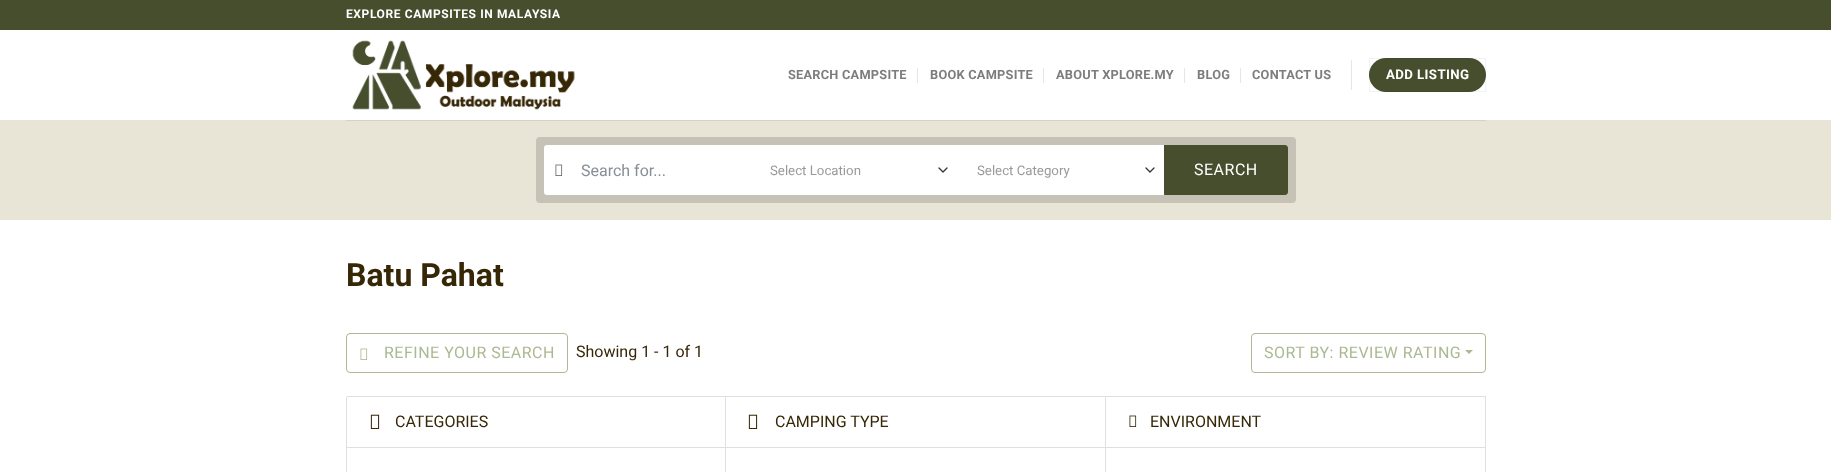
<!DOCTYPE html>
<meta charset="utf-8">
<style>body { margin: 0 } canvas { display: block }</style>
<canvas id="canvas" width="1831" height="472"></canvas>
<script type="module">
  const canvas = document.getElementById("canvas");
  const ctx = canvas.getContext("2d");
  ctx.miterLimit = 4;
  ctx.fontKerning = "normal";
  async function loadImage(src) {
    const img = new Image();
    img.src = src;
    await img.decode();
    return img;
  }

  ctx.fillStyle = "#ffffff";
  ctx.fillRect(0, 0, 1831, 472);
  ctx.fillStyle = "#464e2e";
  ctx.fillRect(0, 0, 1831, 30);
  ctx.letterSpacing = "0.6px";
  ctx.font = "bold 12px Roboto";
  ctx.fillStyle = "#ffffff";
  ctx.fillText("EXPLORE CAMPSITES IN MALAYSIA", 346, 18);
  ctx.drawImage(await loadImage("img1.png"), 352, 40, 223, 70);
  ctx.letterSpacing = "0.25px";
  ctx.font = "bold 12.75px Roboto";
  ctx.fillStyle = "#7d7d7d";
  ctx.fillText("SEARCH CAMPSITE", 788, 79);
  ctx.fillStyle = "#e6e6e6";
  ctx.fillRect(917, 68, 1, 15);
  ctx.fillStyle = "#7d7d7d";
  ctx.fillText("BOOK CAMPSITE", 930, 79);
  ctx.fillStyle = "#e6e6e6";
  ctx.fillRect(1043, 68, 1, 15);
  ctx.fillStyle = "#7d7d7d";
  ctx.fillText("ABOUT XPLORE.MY", 1056, 79);
  ctx.fillStyle = "#e6e6e6";
  ctx.fillRect(1184, 68, 1, 15);
  ctx.fillStyle = "#7d7d7d";
  ctx.fillText("BLOG", 1197, 79);
  ctx.fillStyle = "#e6e6e6";
  ctx.fillRect(1240, 68, 1, 15);
  ctx.fillStyle = "#7d7d7d";
  ctx.fillText("CONTACT US", 1252, 79);
  ctx.fillStyle = "#e6e6e6";
  ctx.fillRect(1351, 60, 1, 30);
  ctx.fillStyle = "#464e2e";
  ctx.beginPath();
  ctx.roundRect(1369, 58, 117, 34, 17);
  ctx.fill();
  ctx.strokeStyle = "rgba(0, 0, 0, 0.05)";
  ctx.strokeRect(1369.5, 58.5, 116, 33);
  ctx.letterSpacing = "0.4px";
  ctx.font = "bold 13.25px Roboto";
  ctx.fillStyle = "#ffffff";
  ctx.fillText("ADD LISTING", 1386, 79);
  ctx.fillStyle = "#e9e5d6";
  ctx.fillRect(0, 120, 1831, 100);
  ctx.fillStyle = "#d7d2c1";
  ctx.fillRect(346, 120, 1140, 1);
  ctx.fillStyle = "#c6c3b6";
  ctx.beginPath();
  ctx.roundRect(536, 137, 760, 66, 4);
  ctx.fill();
  ctx.fillStyle = "#ffffff";
  ctx.beginPath();
  ctx.roundRect(544, 145, 206, 50, [3, 0, 0, 3]);
  ctx.fill();
  ctx.drawImage(await loadImage("img2.png"), 555, 164, 8, 12);
  ctx.letterSpacing = "0px";
  ctx.font = "16px Roboto";
  ctx.fillStyle = "#868e96";
  ctx.fillText("Search for...", 581, 176);
  ctx.fillStyle = "#ffffff";
  ctx.fillRect(750, 145, 414, 50);
  ctx.beginPath();
  ctx.moveTo(939, 168);
  ctx.lineTo(943, 172);
  ctx.lineTo(947, 168);
  ctx.strokeStyle = "#333333";
  ctx.lineWidth = 1.3;
  ctx.lineCap = "round";
  ctx.lineJoin = "round";
  ctx.stroke();
  ctx.font = "13.25px Roboto";
  ctx.fillStyle = "#999999";
  ctx.fillText("Select Location", 770, 175);
  ctx.beginPath();
  ctx.moveTo(1146, 168);
  ctx.lineTo(1150, 172);
  ctx.lineTo(1154, 168);
  ctx.stroke();
  ctx.fillText("Select Category", 977, 175);
  ctx.fillStyle = "#464e2e";
  ctx.beginPath();
  ctx.roundRect(1164.5, 145.5, 123, 49, [0, 2.5, 2.5, 0]);
  ctx.fill();
  ctx.strokeStyle = "#464e2e";
  ctx.lineWidth = 1;
  ctx.lineJoin = "miter";
  ctx.stroke();
  ctx.letterSpacing = "0.5px";
  ctx.font = "16px Roboto";
  ctx.fillStyle = "#ffffff";
  ctx.fillText("SEARCH", 1194, 175);
  ctx.letterSpacing = "0px";
  ctx.font = "bold 32px Roboto";
  ctx.fillStyle = "#362706";
  ctx.fillText("Batu Pahat", 346, 286);
  ctx.beginPath();
  ctx.roundRect(346.5, 333.5, 221, 39, 3.5);
  ctx.strokeStyle = "#acb992";
  ctx.stroke();
  ctx.drawImage(await loadImage("img3.png"), 360, 348, 8, 12);
  ctx.letterSpacing = "0.5px";
  ctx.font = "16px Roboto";
  ctx.fillStyle = "#acb992";
  ctx.fillText("REFINE YOUR SEARCH", 384, 358);
  ctx.letterSpacing = "0px";
  ctx.fillStyle = "#362706";
  ctx.fillText("Showing 1 - 1 of 1", 576, 357);
  ctx.beginPath();
  ctx.roundRect(1251.5, 333.5, 234, 39, 3.5);
  ctx.stroke();
  ctx.letterSpacing = "0.5px";
  ctx.fillStyle = "#acb992";
  ctx.fillText("SORT BY: REVIEW RATING", 1264, 358);
  ctx.beginPath();
  ctx.moveTo(1465, 350);
  ctx.lineTo(1473, 350);
  ctx.lineTo(1469, 354);
  ctx.closePath();
  ctx.fill();
  ctx.fillStyle = "#dfdfdf";
  ctx.fillRect(346, 397, 1, 75);
  ctx.beginPath();
  ctx.moveTo(347, 396);
  ctx.lineTo(726, 396);
  ctx.lineTo(725, 397);
  ctx.lineTo(347, 397);
  ctx.closePath();
  ctx.fill();
  ctx.fillStyle = "rgba(0, 0, 0, 0.12)";
  ctx.beginPath();
  ctx.moveTo(726, 396);
  ctx.lineTo(726, 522);
  ctx.lineTo(725, 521);
  ctx.lineTo(725, 397);
  ctx.closePath();
  ctx.fill();
  ctx.fillStyle = "#dfdfdf";
  ctx.fillRect(347, 447, 378, 1);
  ctx.drawImage(await loadImage("img4.png"), 370, 414, 10, 15);
  ctx.letterSpacing = "0px";
  ctx.fillStyle = "#362706";
  ctx.fillText("CATEGORIES", 395, 427);
  ctx.fillStyle = "#dfdfdf";
  ctx.beginPath();
  ctx.moveTo(726, 396);
  ctx.lineTo(1106, 396);
  ctx.lineTo(1105, 397);
  ctx.lineTo(726, 397);
  ctx.closePath();
  ctx.fill();
  ctx.fillStyle = "rgba(0, 0, 0, 0.12)";
  ctx.beginPath();
  ctx.moveTo(1106, 396);
  ctx.lineTo(1106, 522);
  ctx.lineTo(1105, 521);
  ctx.lineTo(1105, 397);
  ctx.closePath();
  ctx.fill();
  ctx.fillStyle = "#dfdfdf";
  ctx.fillRect(726, 447, 379, 1);
  ctx.drawImage(await loadImage("img4.png"), 748, 414, 10, 15);
  ctx.fillStyle = "#362706";
  ctx.fillText("CAMPING TYPE", 775, 427);
  ctx.fillStyle = "#dfdfdf";
  ctx.beginPath();
  ctx.moveTo(1106, 396);
  ctx.lineTo(1486, 396);
  ctx.lineTo(1485, 397);
  ctx.lineTo(1106, 397);
  ctx.closePath();
  ctx.fill();
  ctx.fillStyle = "rgba(0, 0, 0, 0.12)";
  ctx.beginPath();
  ctx.moveTo(1486, 396);
  ctx.lineTo(1486, 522);
  ctx.lineTo(1485, 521);
  ctx.lineTo(1485, 397);
  ctx.closePath();
  ctx.fill();
  ctx.fillStyle = "#dfdfdf";
  ctx.fillRect(1106, 447, 379, 1);
  ctx.drawImage(await loadImage("img5.png"), 1129, 415, 8, 12);
  ctx.fillStyle = "#362706";
  ctx.fillText("ENVIRONMENT", 1150, 427);
</script>
